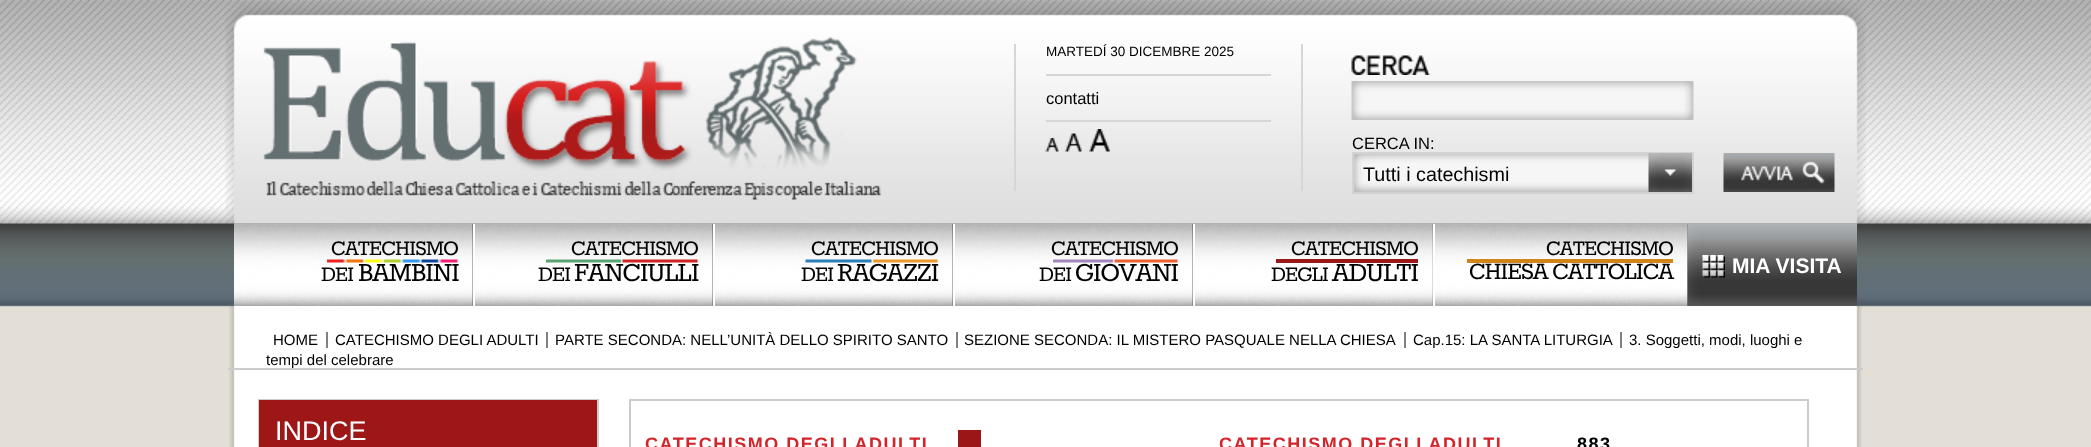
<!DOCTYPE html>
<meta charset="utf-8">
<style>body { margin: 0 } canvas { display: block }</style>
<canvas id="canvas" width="2091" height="447"></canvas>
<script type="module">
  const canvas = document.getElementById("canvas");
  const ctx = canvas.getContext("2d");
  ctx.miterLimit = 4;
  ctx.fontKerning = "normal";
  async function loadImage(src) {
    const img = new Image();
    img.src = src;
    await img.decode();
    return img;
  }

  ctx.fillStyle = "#ffffff";
  ctx.fillRect(0, 0, 2091, 447);
  ctx.drawImage(await loadImage("img1.png"), 0, 0, 2091, 447);
  ctx.drawImage(await loadImage("img2.png"), 225, 1, 1641, 223);
  ctx.fillStyle = "#d6d6d6";
  ctx.fillRect(1301, 44, 2, 147);
  ctx.fillRect(1014, 44, 2, 147);
  ctx.font = "13.5px Liberation Sans";
  ctx.fillStyle = "#000000";
  ctx.fillText("MARTEDÍ 30 DICEMBRE 2025", 1046, 56);
  ctx.fillStyle = "#d6d6d6";
  ctx.fillRect(1046, 74, 225, 2);
  ctx.fillRect(1046, 120, 225, 2);
  ctx.font = "16.5px Liberation Sans";
  ctx.fillStyle = "#000000";
  ctx.fillText("contatti", 1046, 104);
  ctx.drawImage(await loadImage("img3.png"), 1045, 138, 14, 14);
  ctx.drawImage(await loadImage("img4.png"), 1065, 133, 17, 19);
  ctx.drawImage(await loadImage("img5.png"), 1089, 129, 21, 23);
  ctx.drawImage(await loadImage("img6.png"), 1351, 55, 79, 20);
  ctx.drawImage(await loadImage("img7.png"), 1351, 81, 343, 39);
  ctx.fillText("CERCA IN:", 1352, 149);
  ctx.drawImage(await loadImage("img8.png"), 1354, 154, 295, 38);
  ctx.strokeStyle = "#d3d3d3";
  ctx.lineWidth = 2;
  ctx.strokeRect(1353, 153, 340, 40);
  ctx.font = "19.75px Liberation Sans";
  ctx.fillText("Tutti i catechismi", 1363, 181);
  ctx.drawImage(await loadImage("img9.png"), 1648, 153, 44, 39);
  ctx.drawImage(await loadImage("img10.png"), 1723, 153, 112, 39);
  ctx.drawImage(await loadImage("img11.png"), 234, 223, 239, 83);
  ctx.letterSpacing = "-0.9px";
  ctx.font = "24px Rokkitt";
  ctx.fillText("CATECHISMO", 331, 255);
  ctx.drawImage(await loadImage("img12.png"), 327, 259, 131, 4);
  ctx.fillText("DEI", 321, 281);
  ctx.letterSpacing = "-1px";
  ctx.font = "30px Rokkitt";
  ctx.fillText("BAMBINI", 358, 281);
  ctx.drawImage(await loadImage("img13.png"), 474, 223, 239, 83);
  ctx.fillStyle = "#ffffff";
  ctx.fillRect(473, 224, 2, 82);
  ctx.letterSpacing = "-0.9px";
  ctx.font = "24px Rokkitt";
  ctx.fillStyle = "#000000";
  ctx.fillText("CATECHISMO", 571, 255);
  ctx.drawImage(await loadImage("img14.png"), 546, 259, 152, 4);
  ctx.fillText("DEI", 538, 281);
  ctx.letterSpacing = "-1px";
  ctx.font = "30px Rokkitt";
  ctx.fillText("FANCIULLI", 574, 281);
  ctx.drawImage(await loadImage("img15.png"), 714, 223, 239, 83);
  ctx.fillStyle = "#ffffff";
  ctx.fillRect(713, 224, 2, 82);
  ctx.letterSpacing = "-0.9px";
  ctx.font = "24px Rokkitt";
  ctx.fillStyle = "#000000";
  ctx.fillText("CATECHISMO", 811, 255);
  ctx.drawImage(await loadImage("img16.png"), 805, 259, 133, 4);
  ctx.fillText("DEI", 801, 281);
  ctx.letterSpacing = "-1px";
  ctx.font = "30px Rokkitt";
  ctx.fillText("RAGAZZI", 837, 281);
  ctx.drawImage(await loadImage("img17.png"), 954, 223, 239, 83);
  ctx.fillStyle = "#ffffff";
  ctx.fillRect(953, 224, 2, 82);
  ctx.letterSpacing = "-0.9px";
  ctx.font = "24px Rokkitt";
  ctx.fillStyle = "#000000";
  ctx.fillText("CATECHISMO", 1051, 255);
  ctx.drawImage(await loadImage("img18.png"), 1053, 259, 125, 4);
  ctx.fillText("DEI", 1039, 281);
  ctx.letterSpacing = "-1px";
  ctx.font = "30px Rokkitt";
  ctx.fillText("GIOVANI", 1075, 281);
  ctx.drawImage(await loadImage("img19.png"), 1194, 223, 239, 83);
  ctx.fillStyle = "#ffffff";
  ctx.fillRect(1193, 224, 2, 82);
  ctx.letterSpacing = "-0.9px";
  ctx.font = "24px Rokkitt";
  ctx.fillStyle = "#000000";
  ctx.fillText("CATECHISMO", 1291, 255);
  ctx.fillStyle = "#9c1717";
  ctx.fillRect(1276, 259, 142, 4);
  ctx.fillStyle = "#000000";
  ctx.fillText("DEGLI", 1271, 281);
  ctx.letterSpacing = "-1px";
  ctx.font = "30px Rokkitt";
  ctx.fillText("ADULTI", 1332, 281);
  ctx.drawImage(await loadImage("img20.png"), 1432, 223, 256, 83);
  ctx.fillStyle = "#ffffff";
  ctx.fillRect(1433, 224, 2, 82);
  ctx.letterSpacing = "-0.9px";
  ctx.font = "24px Rokkitt";
  ctx.fillStyle = "#000000";
  ctx.fillText("CATECHISMO", 1546, 255);
  ctx.fillStyle = "#d18519";
  ctx.fillRect(1467, 259, 206, 4);
  ctx.letterSpacing = "-1px";
  ctx.font = "27px Rokkitt";
  ctx.fillStyle = "#000000";
  ctx.fillText("CHIESA CATTOLICA", 1469, 279);
  ctx.drawImage(await loadImage("img21.png"), 1687, 223, 170, 83);
  ctx.drawImage(await loadImage("img22.png"), 1702, 255, 23, 23);
  ctx.letterSpacing = "0px";
  ctx.font = "bold 21px Liberation Sans";
  ctx.fillStyle = "#ffffff";
  ctx.fillText("MIA VISITA", 1732, 273);
  ctx.drawImage(await loadImage("img23.png"), 229, 306, 1633, 141);
  ctx.fillStyle = "#cccccc";
  ctx.fillRect(228, 368, 1635, 2);
  ctx.font = "15px Liberation Sans";
  ctx.fillStyle = "#000000";
  ctx.fillText("HOME", 273, 345);
  ctx.fillStyle = "#808080";
  ctx.fillRect(326, 332, 2, 16);
  ctx.fillStyle = "#000000";
  ctx.fillText("CATECHISMO DEGLI ADULTI", 335, 345);
  ctx.fillStyle = "#808080";
  ctx.fillRect(546, 332, 2, 16);
  ctx.fillStyle = "#000000";
  ctx.fillText("PARTE SECONDA: NELL’UNITÀ DELLO SPIRITO SANTO", 555, 345);
  ctx.fillStyle = "#808080";
  ctx.fillRect(956, 332, 2, 16);
  ctx.fillStyle = "#000000";
  ctx.fillText("SEZIONE SECONDA: IL MISTERO PASQUALE NELLA CHIESA", 964, 345);
  ctx.fillStyle = "#808080";
  ctx.fillRect(1404, 332, 2, 16);
  ctx.fillStyle = "#000000";
  ctx.fillText("Cap.15: LA SANTA LITURGIA", 1413, 345);
  ctx.fillStyle = "#808080";
  ctx.fillRect(1620, 332, 2, 16);
  ctx.fillStyle = "#000000";
  ctx.fillText("3. Soggetti, modi, luoghi e", 1629, 345);
  ctx.fillText("tempi del celebrare", 266, 365);
  ctx.strokeStyle = "#cccccc";
  ctx.strokeRect(259, 400, 339, 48);
  ctx.fillStyle = "#9d1717";
  ctx.fillRect(259, 400, 338, 47);
  ctx.font = "27px Liberation Sans";
  ctx.fillStyle = "#ffffff";
  ctx.fillText("INDICE", 275, 440);
  ctx.strokeRect(630, 400, 1178, 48);
  ctx.letterSpacing = "1.5px";
  ctx.font = "bold 18px Liberation Sans";
  ctx.fillStyle = "#d2242a";
  ctx.fillText("CATECHISMO DEGLI ADULTI", 645, 450);
  ctx.fillStyle = "#9b1717";
  ctx.fillRect(958, 430, 23, 17);
  ctx.fillStyle = "#d2242a";
  ctx.fillText("CATECHISMO DEGLI ADULTI", 1219, 450);
  ctx.fillStyle = "#000000";
  ctx.fillText("883", 1577, 450);
</script>
